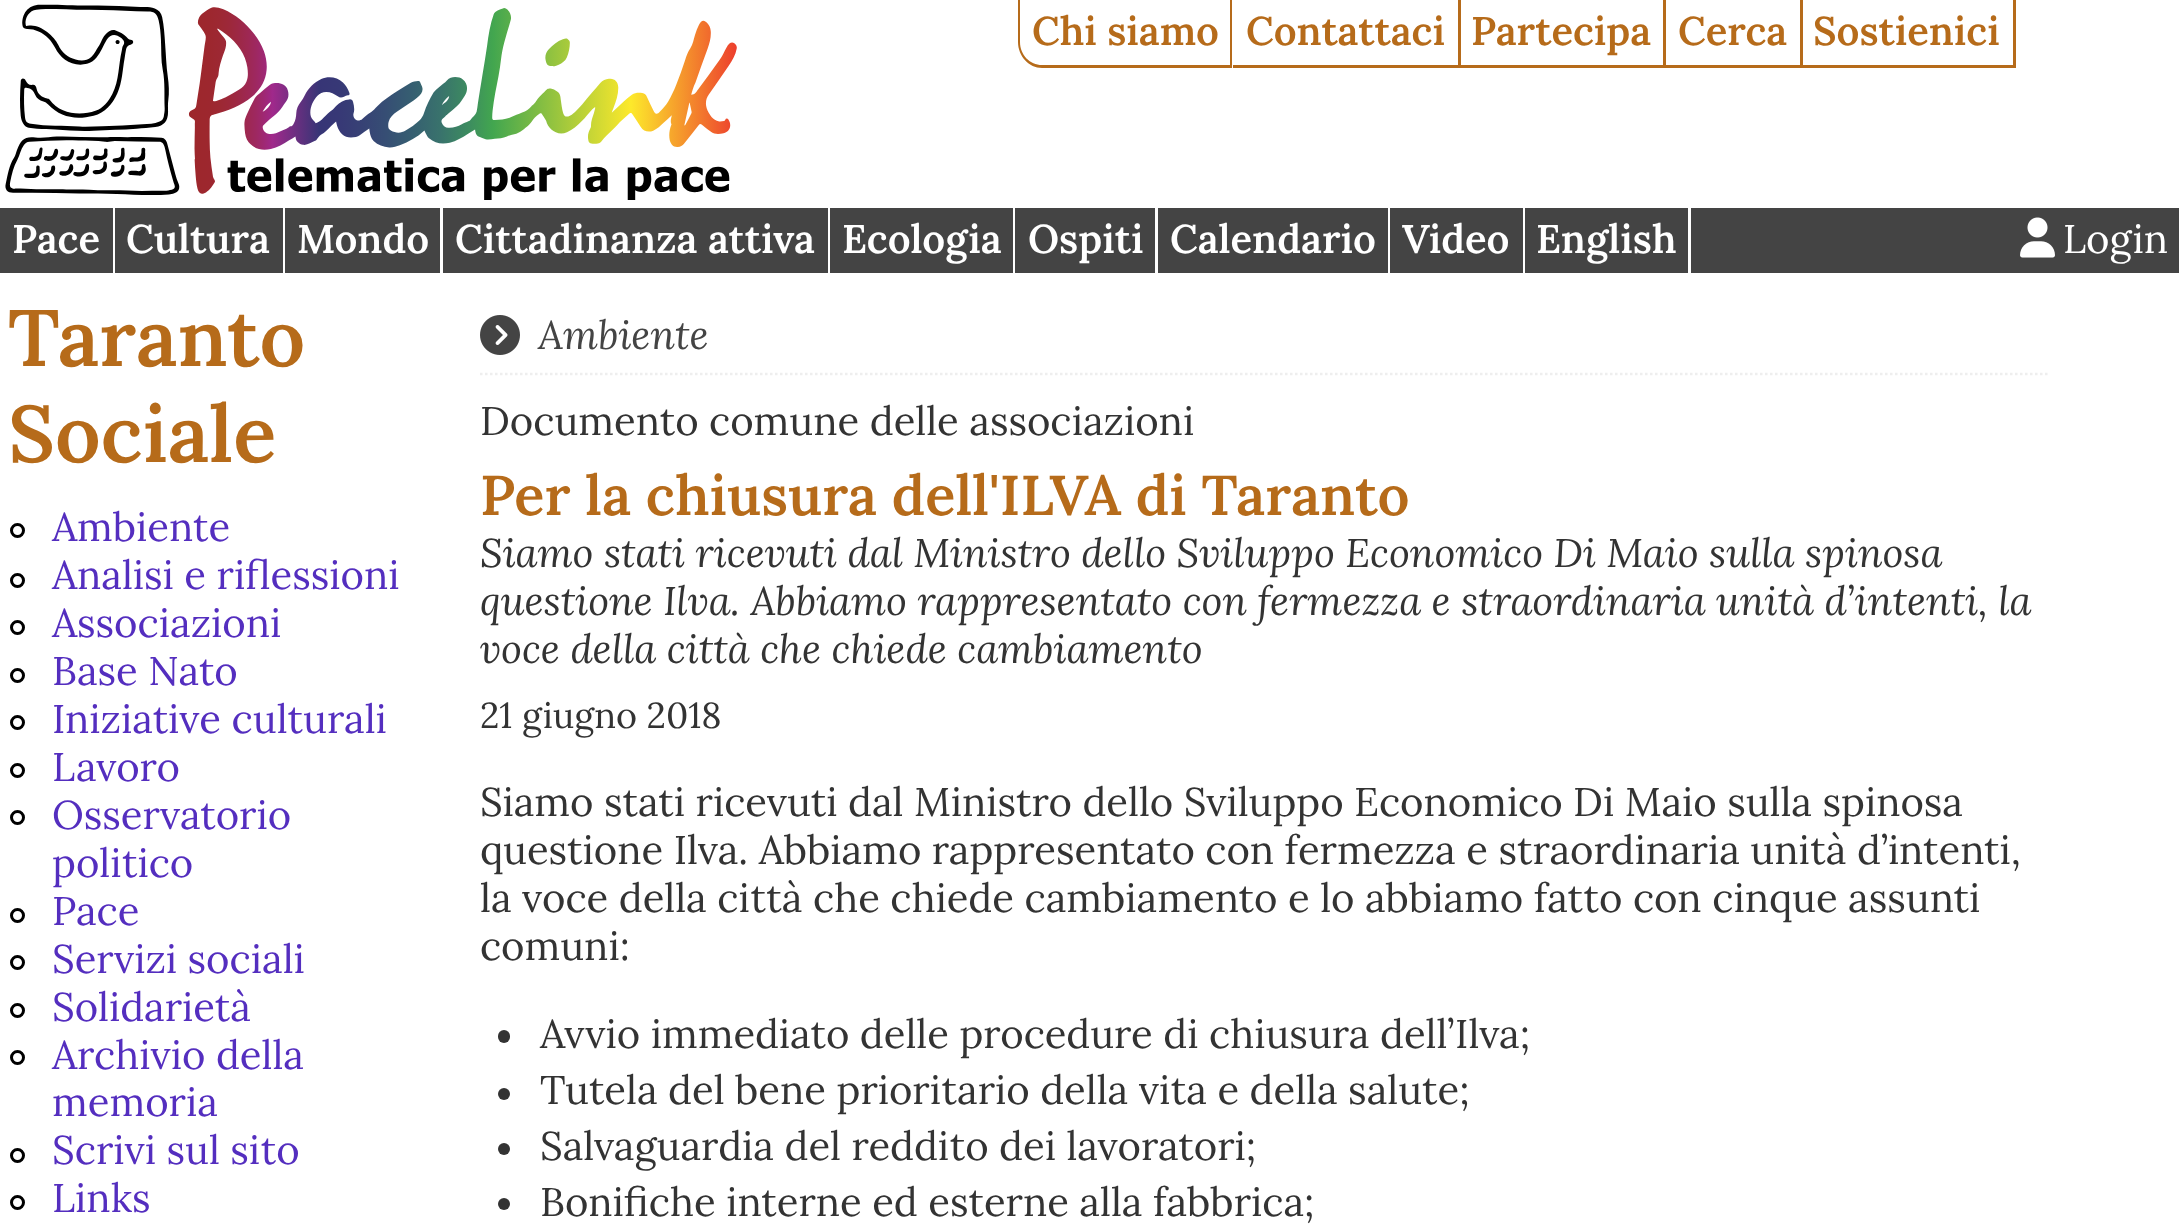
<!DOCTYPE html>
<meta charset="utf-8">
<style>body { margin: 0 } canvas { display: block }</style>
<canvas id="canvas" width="2179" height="1228"></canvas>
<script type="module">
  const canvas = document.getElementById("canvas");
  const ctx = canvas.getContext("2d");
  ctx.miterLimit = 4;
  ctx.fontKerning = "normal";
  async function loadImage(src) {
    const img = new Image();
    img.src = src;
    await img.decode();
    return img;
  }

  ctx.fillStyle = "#ffffff";
  ctx.fillRect(0, 0, 2179, 1228);
  ctx.drawImage(await loadImage("img1.png"), 5, 4, 732, 196);
  ctx.fillStyle = "#b66b1a";
  ctx.beginPath();
  ctx.moveTo(1018, 0);
  ctx.lineTo(1232, 0);
  ctx.lineTo(1232, 68);
  ctx.lineTo(1042, 68);
  ctx.bezierCurveTo(1029, 68, 1018, 56, 1018, 42);
  ctx.closePath();
  ctx.moveTo(1020, 0);
  ctx.lineTo(1230, 0);
  ctx.lineTo(1230, 65);
  ctx.lineTo(1042, 65);
  ctx.bezierCurveTo(1030, 65, 1020, 55, 1020, 42);
  ctx.closePath();
  ctx.fill("evenodd");
  ctx.font = "600 40px Lora";
  ctx.fillText("Chi siamo", 1032, 45);
  ctx.fillRect(1458, 0, 3, 68);
  ctx.fillRect(1233, 65, 227, 3);
  ctx.fillText("Contattaci", 1246, 45);
  ctx.fillRect(1663, 0, 3, 68);
  ctx.fillRect(1460, 65, 205, 3);
  ctx.fillText("Partecipa", 1471, 45);
  ctx.fillRect(1800, 0, 3, 68);
  ctx.fillRect(1665, 65, 138, 3);
  ctx.fillText("Cerca", 1678, 45);
  ctx.fillRect(2013, 0, 3, 68);
  ctx.fillRect(1803, 65, 212, 3);
  ctx.fillText("Sostienici", 1813, 45);
  ctx.fillStyle = "#444444";
  ctx.fillRect(0, 208, 2179, 65);
  ctx.fillStyle = "#ffffff";
  ctx.fillRect(113, 208, 2, 65);
  ctx.fillText("Pace", 12, 253);
  ctx.fillRect(283, 208, 2, 65);
  ctx.fillText("Cultura", 126, 253);
  ctx.fillRect(440, 208, 3, 65);
  ctx.fillText("Mondo", 297, 253);
  ctx.fillRect(828, 208, 2, 65);
  ctx.fillText("Cittadinanza attiva", 455, 253);
  ctx.fillRect(1013, 208, 2, 65);
  ctx.fillText("Ecologia", 842, 253);
  ctx.fillRect(1155, 208, 3, 65);
  ctx.fillText("Ospiti", 1028, 253);
  ctx.fillRect(1388, 208, 2, 65);
  ctx.fillText("Calendario", 1170, 253);
  ctx.fillRect(1523, 208, 2, 65);
  ctx.fillText("Video", 1402, 253);
  ctx.fillRect(1688, 208, 3, 65);
  ctx.fillText("English", 1536, 253);
  ctx.drawImage(await loadImage("img2.png"), 2020, 217, 35, 41);
  ctx.font = "40px Lora";
  ctx.fillText("Login", 2063, 253);
  ctx.font = "600 80px Lora";
  ctx.fillStyle = "#b66b1a";
  ctx.fillText("Taranto", 8, 366);
  ctx.fillText("Sociale", 8, 462);
  ctx.beginPath();
  ctx.arc(17.5, 530.5, 6, 0, Math.PI * 2);
  ctx.strokeStyle = "#000000";
  ctx.lineWidth = 3;
  ctx.stroke();
  ctx.font = "40px Lora";
  ctx.fillStyle = "#542ebf";
  ctx.fillText("Ambiente", 52, 541);
  ctx.beginPath();
  ctx.arc(17.5, 580.5, 6, 0, Math.PI * 2);
  ctx.stroke();
  ctx.fillText("Analisi e riflessioni", 52, 589);
  ctx.beginPath();
  ctx.arc(17.5, 627.5, 6, 0, Math.PI * 2);
  ctx.stroke();
  ctx.fillText("Associazioni", 52, 637);
  ctx.beginPath();
  ctx.arc(17.5, 675.5, 6, 0, Math.PI * 2);
  ctx.stroke();
  ctx.fillText("Base Nato", 52, 685);
  ctx.beginPath();
  ctx.arc(17.5, 722.5, 6, 0, Math.PI * 2);
  ctx.stroke();
  ctx.fillText("Iniziative culturali", 52, 733);
  ctx.beginPath();
  ctx.arc(17.5, 770.5, 6, 0, Math.PI * 2);
  ctx.stroke();
  ctx.fillText("Lavoro", 52, 781);
  ctx.beginPath();
  ctx.arc(17.5, 817.5, 6, 0, Math.PI * 2);
  ctx.stroke();
  ctx.fillText("Osservatorio", 52, 829);
  ctx.fillText("politico", 52, 877);
  ctx.beginPath();
  ctx.arc(17.5, 915.5, 6, 0, Math.PI * 2);
  ctx.stroke();
  ctx.fillText("Pace", 52, 925);
  ctx.beginPath();
  ctx.arc(17.5, 962.5, 6, 0, Math.PI * 2);
  ctx.stroke();
  ctx.fillText("Servizi sociali", 52, 973);
  ctx.beginPath();
  ctx.arc(17.5, 1010.5, 6, 0, Math.PI * 2);
  ctx.stroke();
  ctx.fillText("Solidarietà", 52, 1021);
  ctx.beginPath();
  ctx.arc(17.5, 1057.5, 6, 0, Math.PI * 2);
  ctx.stroke();
  ctx.fillText("Archivio della", 52, 1069);
  ctx.fillText("memoria", 52, 1116);
  ctx.beginPath();
  ctx.arc(17.5, 1155.5, 6, 0, Math.PI * 2);
  ctx.stroke();
  ctx.fillText("Scrivi sul sito", 52, 1164);
  ctx.beginPath();
  ctx.arc(17.5, 1202.5, 6, 0, Math.PI * 2);
  ctx.stroke();
  ctx.fillText("Links", 52, 1212);
  ctx.beginPath();
  ctx.moveTo(480, 374);
  ctx.lineTo(2050, 374);
  ctx.strokeStyle = "#eeeeee";
  ctx.lineWidth = 2.5;
  ctx.setLineDash([2.5, 2.5]);
  ctx.stroke();
  ctx.drawImage(await loadImage("img3.png"), 480, 315, 40, 40);
  ctx.font = "italic 40px Lora";
  ctx.fillStyle = "#444444";
  ctx.fillText("Ambiente", 538, 349);
  ctx.font = "40px Lora";
  ctx.fillStyle = "#333333";
  ctx.fillText("Documento comune delle associazioni", 480, 435);
  ctx.font = "600 56px Lora";
  ctx.fillStyle = "#b66b1a";
  ctx.fillText("Per la chiusura dell'ILVA di Taranto", 480, 515);
  ctx.font = "italic 40px Lora";
  ctx.fillStyle = "#333333";
  ctx.fillText("Siamo stati ricevuti dal Ministro dello Sviluppo Economico Di Maio sulla spinosa", 480, 567);
  ctx.fillText("questione Ilva. Abbiamo rappresentato con fermezza e straordinaria unità d’intenti, la", 480, 615);
  ctx.fillText("voce della città che chiede cambiamento", 480, 663);
  ctx.font = "36px Lora";
  ctx.fillText("21 giugno 2018", 480, 728);
  ctx.font = "40px Lora";
  ctx.fillText("Siamo stati ricevuti dal Ministro dello Sviluppo Economico Di Maio sulla spinosa", 480, 816);
  ctx.fillText("questione Ilva. Abbiamo rappresentato con fermezza e straordinaria unità d’intenti,", 480, 864);
  ctx.fillText("la voce della città che chiede cambiamento e lo abbiamo fatto con cinque assunti", 480, 912);
  ctx.fillText("comuni:", 480, 960);
  ctx.beginPath();
  ctx.roundRect(498, 1030, 12, 13, 6);
  ctx.fill();
  ctx.fillText("Avvio immediato delle procedure di chiusura dell’Ilva;", 540, 1048);
  ctx.beginPath();
  ctx.arc(504, 1094, 6, 0, Math.PI * 2);
  ctx.fill();
  ctx.fillText("Tutela del bene prioritario della vita e della salute;", 540, 1104);
  ctx.beginPath();
  ctx.arc(504, 1149, 6, 0, Math.PI * 2);
  ctx.fill();
  ctx.fillText("Salvaguardia del reddito dei lavoratori;", 540, 1160);
  ctx.beginPath();
  ctx.arc(504, 1204, 6, 0, Math.PI * 2);
  ctx.fill();
  ctx.fillText("Bonifiche interne ed esterne alla fabbrica;", 540, 1216);
</script>
